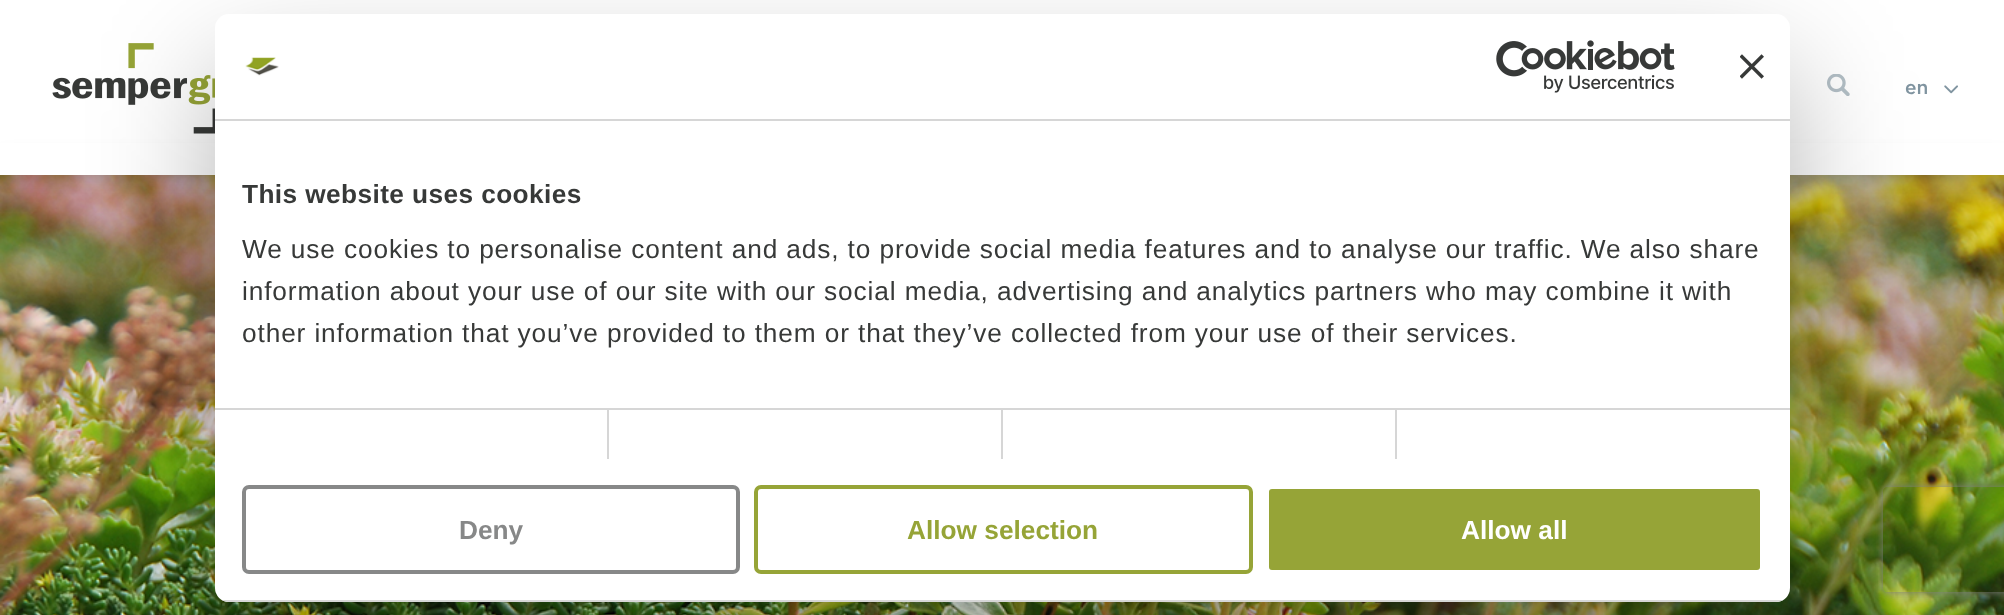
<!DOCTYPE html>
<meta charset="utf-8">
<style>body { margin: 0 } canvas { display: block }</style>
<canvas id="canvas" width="2004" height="615"></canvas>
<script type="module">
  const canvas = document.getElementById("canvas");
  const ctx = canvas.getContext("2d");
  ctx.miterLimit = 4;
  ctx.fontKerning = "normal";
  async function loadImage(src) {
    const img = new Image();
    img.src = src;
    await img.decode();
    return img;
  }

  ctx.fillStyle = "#ffffff";
  ctx.fillRect(0, 0, 2004, 615);
  ctx.drawImage(await loadImage("img4.png"), 0, 175, 2004, 440);
  ctx.fillStyle = "rgba(0, 0, 0, 0.2)";
  ctx.filter = "blur(9px)";
  ctx.beginPath();
  ctx.roundRect(0, 158, 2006, 17, 8.5);
  ctx.fill();
  ctx.filter = "none";
  ctx.drawImage(await loadImage("img1.png"), 52, 43, 163, 91);
  ctx.drawImage(await loadImage("img2.png"), 1827, 74, 23, 22);
  ctx.font = "500 19px Gotham";
  ctx.fillStyle = "#8094a0";
  ctx.fillText("en", 1905, 94);
  ctx.drawImage(await loadImage("img3.png"), 1944, 85, 14, 9);
  ctx.fillStyle = "#ffffff";
  ctx.fillRect(0, 143, 2004, 32);
  ctx.fillStyle = "rgba(0, 0, 0, 0.3)";
  ctx.filter = "blur(59.5px)";
  ctx.beginPath();
  ctx.roundRect(215, 70, 1575, 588, 14);
  ctx.fill();
  ctx.filter = "none";
  ctx.fillStyle = "#ffffff";
  ctx.beginPath();
  ctx.roundRect(215, 14, 1575, 588, 14);
  ctx.fill();
  ctx.fillStyle = "#d6d6d6";
  ctx.fillRect(215, 119, 1575, 2);
  ctx.drawImage(await loadImage("img5.png"), 245, 57, 34, 19);
  ctx.drawImage(await loadImage("img6.png"), 1496, 40, 179, 53);
  ctx.drawImage(await loadImage("img7.png"), 1740, 54, 24, 25);
  ctx.fillRect(215, 408, 1575, 2);
  ctx.letterSpacing = "0.4px";
  ctx.font = "bold 26.25px Liberation Sans";
  ctx.fillStyle = "#373938";
  ctx.fillText("This website uses cookies", 242, 203);
  ctx.letterSpacing = "0.88px";
  ctx.font = "26.25px Liberation Sans";
  ctx.fillText("We use cookies to personalise content and ads, to provide social media features and to analyse our traffic. We also share", 242, 258);
  ctx.fillText("information about your use of our site with our social media, advertising and analytics partners who may combine it with", 242, 300);
  ctx.fillText("other information that you’ve provided to them or that they’ve collected from your use of their services.", 242, 342);
  ctx.fillStyle = "#d6d6d6";
  ctx.fillRect(607, 410, 2, 49);
  ctx.fillRect(1001, 410, 2, 49);
  ctx.fillRect(1395, 410, 2, 49);
  ctx.save();
  ctx.beginPath();
  ctx.roundRect(215, 14, 1575, 588, 14);
  ctx.clip();
  ctx.fillRect(215, 600, 1575, 2);
  ctx.restore();
  ctx.beginPath();
  ctx.roundRect(244, 487, 494, 85, 5);
  ctx.strokeStyle = "#878888";
  ctx.lineWidth = 4;
  ctx.stroke();
  ctx.letterSpacing = "0px";
  ctx.font = "bold 26.25px Liberation Sans";
  ctx.fillStyle = "#878888";
  ctx.fillText("Deny", 459, 539);
  ctx.beginPath();
  ctx.roundRect(756, 487, 495, 85, 5);
  ctx.strokeStyle = "#96a437";
  ctx.stroke();
  ctx.fillStyle = "#96a437";
  ctx.fillText("Allow selection", 907, 539);
  ctx.beginPath();
  ctx.roundRect(1267, 487, 495, 85, 5);
  ctx.fill();
  ctx.strokeStyle = "#ffffff";
  ctx.stroke();
  ctx.fillStyle = "#ffffff";
  ctx.fillText("Allow all", 1461, 539);
  ctx.save();
  ctx.beginPath();
  ctx.moveTo(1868, 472);
  ctx.lineTo(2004, 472);
  ctx.lineTo(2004, 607);
  ctx.lineTo(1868, 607);
  ctx.closePath();
  ctx.moveTo(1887, 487);
  ctx.lineTo(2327, 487);
  ctx.bezierCurveTo(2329, 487, 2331, 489, 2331, 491);
  ctx.lineTo(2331, 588);
  ctx.bezierCurveTo(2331, 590, 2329, 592, 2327, 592);
  ctx.lineTo(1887, 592);
  ctx.bezierCurveTo(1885, 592, 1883, 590, 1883, 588);
  ctx.lineTo(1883, 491);
  ctx.bezierCurveTo(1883, 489, 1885, 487, 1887, 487);
  ctx.closePath();
  ctx.clip("evenodd");
  ctx.fillStyle = "#808080";
  ctx.filter = "blur(4.5px)";
  ctx.beginPath();
  ctx.roundRect(1883, 487, 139, 105, 4);
  ctx.fill();
  ctx.filter = "none";
  ctx.restore();
</script>
